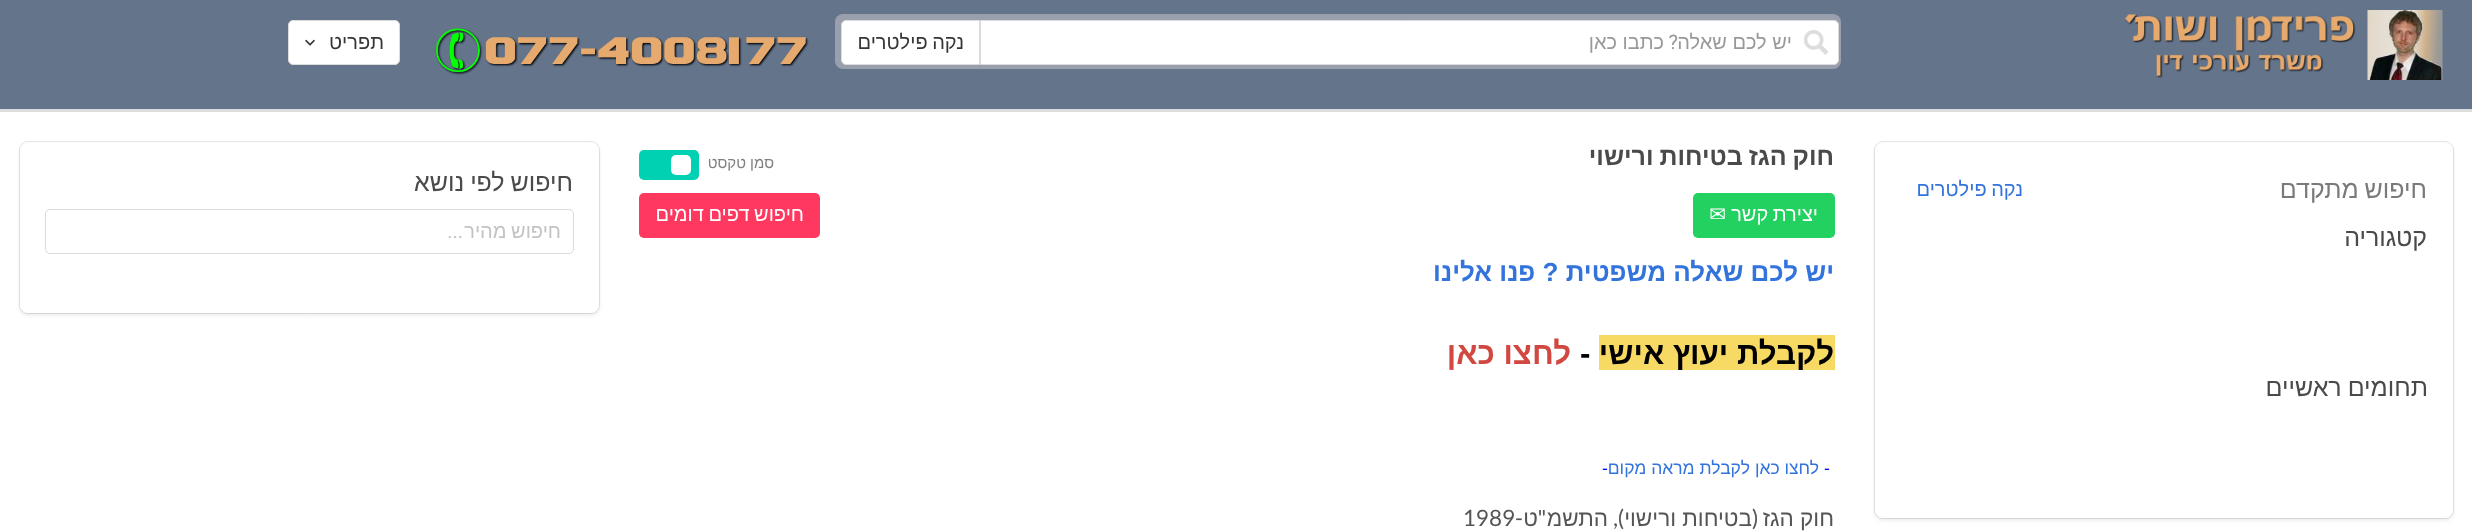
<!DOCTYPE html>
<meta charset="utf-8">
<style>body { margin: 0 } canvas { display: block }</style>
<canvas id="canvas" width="2472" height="531"></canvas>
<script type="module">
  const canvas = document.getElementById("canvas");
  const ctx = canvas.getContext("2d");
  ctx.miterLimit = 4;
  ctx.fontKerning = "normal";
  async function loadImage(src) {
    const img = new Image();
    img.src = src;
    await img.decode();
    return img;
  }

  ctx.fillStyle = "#ffffff";
  ctx.fillRect(0, 0, 2472, 531);
  ctx.fillStyle = "#64748b";
  ctx.fillRect(0, 0, 2472, 109);
  ctx.fillStyle = "#dddddd";
  ctx.fillRect(0, 109, 2472, 3);
  ctx.drawImage(await loadImage("img1.png"), 2367, 10, 76, 70);
  ctx.drawImage(await loadImage("img2.png"), 2124, 14, 232, 64);
  ctx.fillStyle = "rgba(255, 241, 241, 0.35)";
  ctx.filter = "blur(0.5px)";
  ctx.beginPath();
  ctx.roundRect(835, 14, 1006, 55, 8);
  ctx.fill();
  ctx.filter = "none";
  ctx.fillStyle = "#ffffff";
  ctx.beginPath();
  ctx.roundRect(980.5, 20.5, 858, 44, [0, 4.5, 4.5, 0]);
  ctx.fill();
  ctx.strokeStyle = "#dbdbdb";
  ctx.stroke();
  ctx.drawImage(await loadImage("img3.png"), 1804, 30, 25, 25);
  ctx.direction = "rtl";
  ctx.font = "20px Liberation Sans";
  ctx.fillStyle = "#999999";
  ctx.fillText("יש לכם שאלה", 1792, 49);
  ctx.font = "20px Roboto";
  ctx.fillText("?", 1678, 49);
  ctx.font = "20px Liberation Sans";
  ctx.fillText("כתבו כאן", 1664, 49);
  ctx.fillStyle = "#ffffff";
  ctx.beginPath();
  ctx.roundRect(841.5, 20.5, 138, 44, [4.5, 0, 0, 4.5]);
  ctx.fill();
  ctx.stroke();
  ctx.wordSpacing = "-1px";
  ctx.fillStyle = "#363636";
  ctx.fillText("נקה פילטרים", 964, 49);
  ctx.drawImage(await loadImage("img4.png"), 435, 28, 374, 47);
  ctx.fillStyle = "#ffffff";
  ctx.beginPath();
  ctx.roundRect(288.5, 20.5, 111, 44, 4.5);
  ctx.fill();
  ctx.stroke();
  ctx.wordSpacing = "0px";
  ctx.fillStyle = "#363636";
  ctx.fillText("תפריט", 384, 49);
  ctx.drawImage(await loadImage("img5.png"), 305, 39, 10, 7);
  ctx.beginPath();
  ctx.roundRect(1874.5, 141.5, 579, 377, 8.5);
  ctx.strokeStyle = "#e7e7e7";
  ctx.stroke();
  ctx.fillStyle = "rgba(10, 10, 10, 0.1)";
  ctx.filter = "blur(2px)";
  ctx.beginPath();
  ctx.roundRect(1875, 145, 578, 375, 8);
  ctx.fill();
  ctx.filter = "none";
  ctx.fillStyle = "#ffffff";
  ctx.beginPath();
  ctx.roundRect(1875, 143, 578, 375, 8);
  ctx.fill();
  ctx.wordSpacing = "-1px";
  ctx.font = "25px Liberation Sans";
  ctx.fillStyle = "#7a7a7a";
  ctx.fillText("חיפוש מתקדם", 2427, 198);
  ctx.font = "20px Liberation Sans";
  ctx.fillStyle = "#3273dc";
  ctx.fillText("נקה פילטרים", 2023, 196);
  ctx.wordSpacing = "0px";
  ctx.font = "25px Liberation Sans";
  ctx.fillStyle = "#4a4a4a";
  ctx.fillText("קטגוריה", 2427, 246);
  ctx.wordSpacing = "-1px";
  ctx.fillText("תחומים ראשיים", 2428, 396);
  ctx.font = "bold 25px Liberation Sans";
  ctx.fillText("חוק הגז בטיחות ורישוי", 1834, 165);
  ctx.fillStyle = "#00d1b2";
  ctx.beginPath();
  ctx.roundRect(639, 150, 60, 30, 5);
  ctx.fill();
  ctx.wordSpacing = "0px";
  ctx.font = "15px Liberation Sans";
  ctx.fillStyle = "#808080";
  ctx.fillText("סמן טקסט", 774, 168);
  ctx.fillStyle = "#ffffff";
  ctx.beginPath();
  ctx.roundRect(671, 155, 20, 20, 5);
  ctx.fill();
  ctx.fillStyle = "#23d160";
  ctx.beginPath();
  ctx.roundRect(1693, 193, 142, 45, 5);
  ctx.fill();
  ctx.wordSpacing = "-1px";
  ctx.font = "20px Liberation Sans";
  ctx.fillStyle = "#ffffff";
  ctx.fillText("יצירת קשר", 1818, 221);
  ctx.wordSpacing = "0px";
  ctx.font = "20px DejaVu Sans";
  ctx.fillText("✉", 1726, 221);
  ctx.fillStyle = "#ff3860";
  ctx.beginPath();
  ctx.roundRect(639, 193, 181, 45, 5);
  ctx.fill();
  ctx.wordSpacing = "-1px";
  ctx.font = "20px Liberation Sans";
  ctx.fillStyle = "#ffffff";
  ctx.fillText("חיפוש דפים דומים", 804, 221);
  ctx.wordSpacing = "0px";
  ctx.font = "bold 26px Liberation Sans";
  ctx.fillStyle = "#3273dc";
  ctx.fillText("יש לכם שאלה משפטית ? פנו אלינו", 1834, 281);
  ctx.fillStyle = "#f7da64";
  ctx.fillRect(1599, 335, 236, 35);
  ctx.font = "bold 31.25px Liberation Sans";
  ctx.fillStyle = "#000000";
  ctx.fillText("לקבלת יעוץ אישי", 1834, 364);
  ctx.direction = "ltr";
  ctx.fillText("-", 1580, 364);
  ctx.direction = "rtl";
  ctx.fillStyle = "#d14841";
  ctx.fillText("לחצו כאן", 1571, 364);
  ctx.direction = "ltr";
  ctx.font = "17.5px Liberation Sans";
  ctx.fillStyle = "#0000ff";
  ctx.fillText("-", 1824, 474);
  ctx.direction = "rtl";
  ctx.fillStyle = "#3273dc";
  ctx.fillText("לחצו כאן לקבלת מראה מקום", 1819, 474);
  ctx.direction = "ltr";
  ctx.fillStyle = "#0000ff";
  ctx.fillText("-", 1602, 474);
  ctx.direction = "rtl";
  ctx.font = "22.5px Liberation Sans";
  ctx.fillStyle = "#555555";
  ctx.fillText("חוק הגז", 1834, 526);
  ctx.font = "22.5px Lato";
  ctx.fillText("(", 1758, 526);
  ctx.font = "22.5px Liberation Sans";
  ctx.fillText("בטיחות ורישוי", 1752, 526);
  ctx.font = "22.5px Lato";
  ctx.fillText("),", 1624, 526);
  ctx.font = "22.5px Liberation Sans";
  ctx.fillText("התשמ", 1608, 526);
  ctx.font = "22.5px Lato";
  ctx.fillText("\"", 1546, 526);
  ctx.font = "22.5px Liberation Sans";
  ctx.fillText("ט", 1538, 526);
  ctx.font = "22.5px Lato";
  ctx.fillText("-", 1523, 526);
  ctx.direction = "ltr";
  ctx.fillText("1989", 1463, 526);
  ctx.beginPath();
  ctx.roundRect(19.5, 141.5, 580, 172, 8.5);
  ctx.stroke();
  ctx.fillStyle = "rgba(10, 10, 10, 0.1)";
  ctx.filter = "blur(2px)";
  ctx.beginPath();
  ctx.roundRect(20, 145, 579, 170, 8);
  ctx.fill();
  ctx.filter = "none";
  ctx.fillStyle = "#ffffff";
  ctx.beginPath();
  ctx.roundRect(20, 143, 579, 170, 8);
  ctx.fill();
  ctx.wordSpacing = "-1px";
  ctx.direction = "rtl";
  ctx.font = "25px Liberation Sans";
  ctx.fillStyle = "#4a4a4a";
  ctx.fillText("חיפוש לפי נושא", 573, 191);
  ctx.beginPath();
  ctx.roundRect(45.5, 209.5, 528, 44, 4.5);
  ctx.strokeStyle = "#dbdbdb";
  ctx.stroke();
  ctx.font = "20px Liberation Sans";
  ctx.fillStyle = "#c3c3c3";
  ctx.fillText("חיפוש מהיר", 561, 238);
  ctx.wordSpacing = "0px";
  ctx.font = "20px Roboto";
  ctx.fillText("...", 463, 238);
</script>
